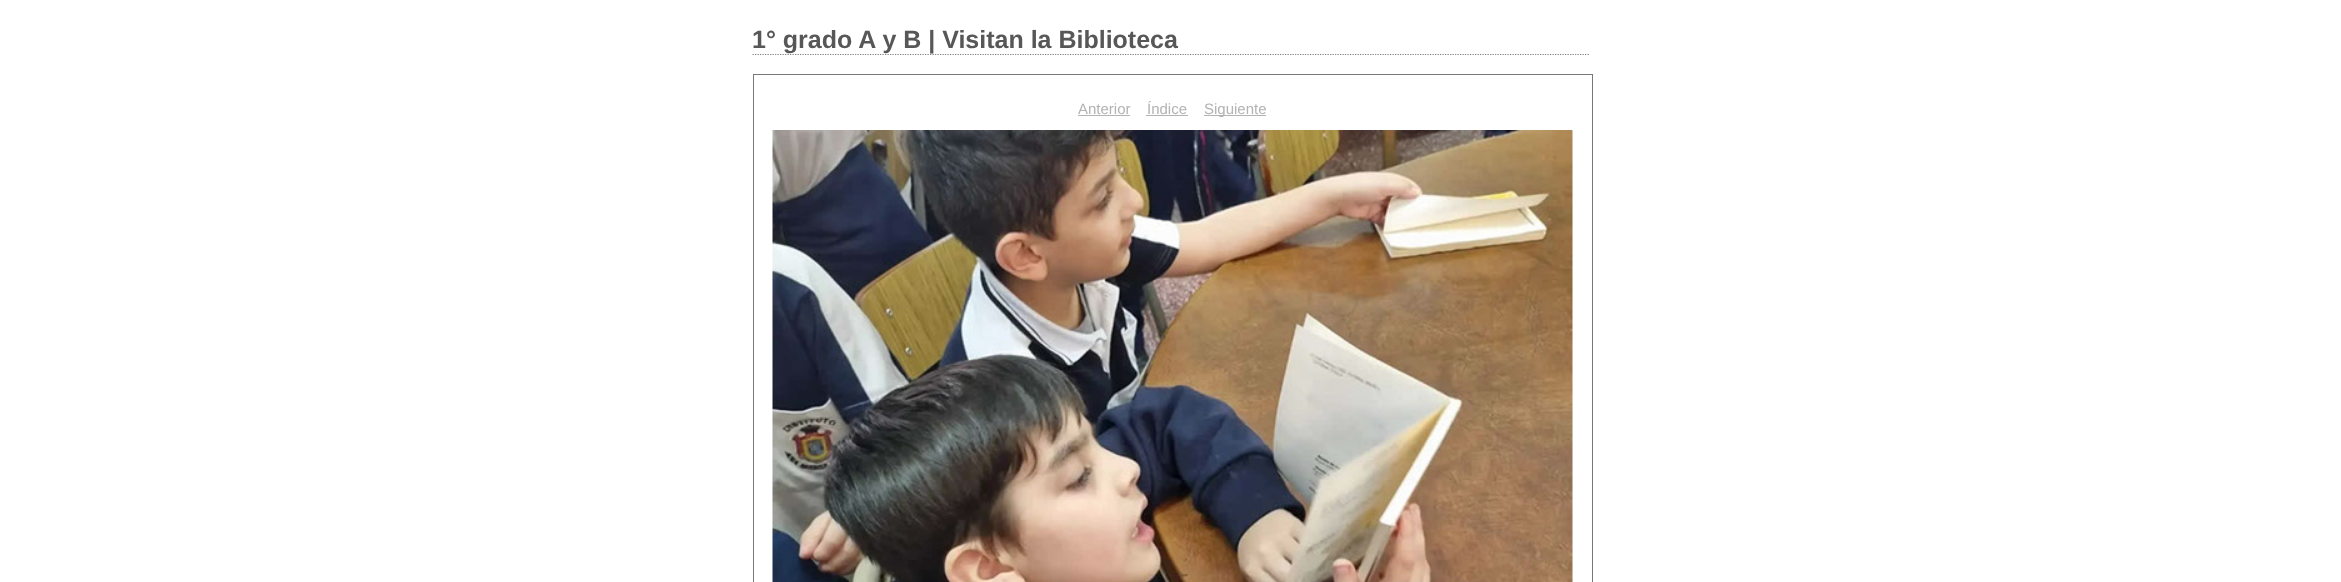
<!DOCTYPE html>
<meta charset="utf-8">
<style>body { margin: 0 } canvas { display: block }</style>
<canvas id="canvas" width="2341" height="582"></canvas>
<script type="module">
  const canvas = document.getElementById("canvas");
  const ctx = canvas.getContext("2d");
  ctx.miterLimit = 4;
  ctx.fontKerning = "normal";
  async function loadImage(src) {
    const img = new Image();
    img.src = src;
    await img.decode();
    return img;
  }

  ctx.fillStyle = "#ffffff";
  ctx.fillRect(0, 0, 2341, 582);
  ctx.beginPath();
  ctx.moveTo(752.5, 54.5);
  ctx.lineTo(1590, 54.5);
  ctx.strokeStyle = "#7f7f7f";
  ctx.lineWidth = 1.2;
  ctx.setLineDash([1.25, 1.25]);
  ctx.stroke();
  ctx.font = "bold 25px Liberation Sans";
  ctx.fillStyle = "#575757";
  ctx.fillText("1° grado A y B | Visitan la Biblioteca", 752, 48);
  ctx.strokeStyle = "#787878";
  ctx.lineWidth = 1;
  ctx.setLineDash([]);
  ctx.strokeRect(753.5, 74.5, 839, 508);
  ctx.font = "15px Liberation Sans";
  ctx.fillStyle = "#b3b3b3";
  ctx.fillText("Anterior", 1078, 114);
  ctx.fillRect(1078, 115, 52, 1);
  ctx.fillText("Índice", 1147, 114);
  ctx.fillRect(1146, 115, 42, 1);
  ctx.fillRect(1204, 115, 62, 1);
  ctx.fillText("Siguiente", 1204, 114);
  ctx.drawImage(await loadImage("img1.png"), 772, 130, 801, 452);
</script>
